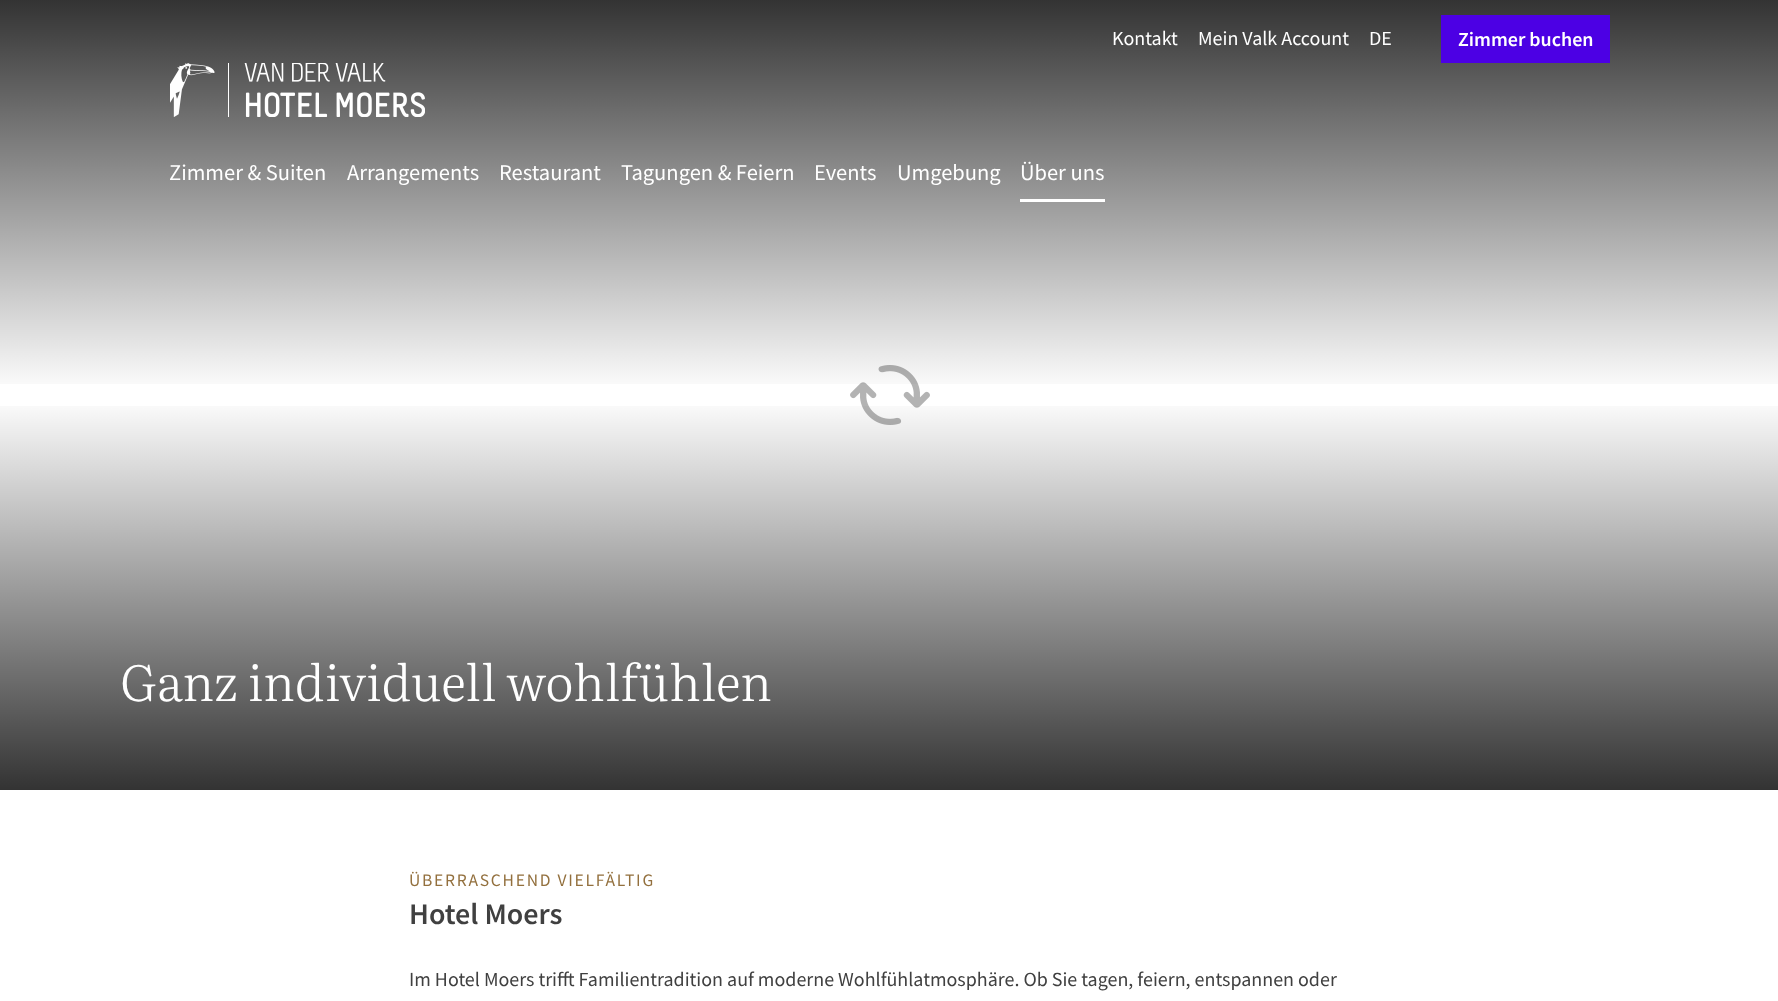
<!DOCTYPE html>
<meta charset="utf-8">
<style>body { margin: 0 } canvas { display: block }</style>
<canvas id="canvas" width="1778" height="1001"></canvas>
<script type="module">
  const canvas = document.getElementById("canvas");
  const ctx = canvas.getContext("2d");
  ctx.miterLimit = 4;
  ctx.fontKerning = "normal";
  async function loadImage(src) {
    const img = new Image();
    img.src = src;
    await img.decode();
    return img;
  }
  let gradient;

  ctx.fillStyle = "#ffffff";
  ctx.fillRect(0, 0, 1778, 1001);
  ctx.drawImage(await loadImage("img2.png"), 850, 365, 80, 60);
  gradient = ctx.createLinearGradient(889, 0, 889, 790);
  gradient.addColorStop(0, "rgba(0, 0, 0, 0.8)");
  gradient.addColorStop(0.5, "rgba(0, 0, 0, 0)");
  ctx.fillStyle = gradient;
  ctx.fillRect(0, 0, 1778, 384);
  ctx.font = "20px Source Sans Pro";
  ctx.fillStyle = "#ffffff";
  ctx.fillText("Kontakt", 1112, 45);
  ctx.fillText("Mein Valk Account", 1198, 45);
  ctx.fillText("DE", 1369, 45);
  ctx.fillStyle = "#4c00e4";
  ctx.fillRect(1441, 15, 169, 48);
  ctx.font = "600 20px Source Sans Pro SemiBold";
  ctx.fillStyle = "#ffffff";
  ctx.fillText("Zimmer buchen", 1458, 46);
  ctx.drawImage(await loadImage("img1.png"), 170, 63, 255, 54);
  ctx.font = "22.5px Source Sans Pro";
  ctx.fillText("Zimmer & Suiten", 169, 180);
  ctx.fillText("Arrangements", 347, 180);
  ctx.fillText("Restaurant", 499, 180);
  ctx.fillText("Tagungen & Feiern", 621, 180);
  ctx.fillText("Events", 814, 180);
  ctx.fillText("Umgebung", 897, 180);
  ctx.fillRect(1020, 199, 85, 3);
  ctx.fillText("Über uns", 1020, 180);
  gradient = ctx.createLinearGradient(889, 790, 889, 0);
  gradient.addColorStop(0, "rgba(0, 0, 0, 0.8)");
  gradient.addColorStop(0.5, "rgba(0, 0, 0, 0)");
  ctx.fillStyle = gradient;
  ctx.fillRect(0, 406, 1778, 384);
  ctx.font = "300 50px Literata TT";
  ctx.fillStyle = "#ffffff";
  ctx.fillText("Ganz individuell wohlfühlen", 120, 701);
  ctx.letterSpacing = "1.75px";
  ctx.font = "17.5px Source Sans Pro";
  ctx.fillStyle = "#93703e";
  ctx.fillText("ÜBERRASCHEND VIELFÄLTIG", 409, 886);
  ctx.letterSpacing = "0px";
  ctx.font = "600 30px Source Sans Pro SemiBold";
  ctx.fillStyle = "#404040";
  ctx.fillText("Hotel Moers", 409, 924);
  ctx.font = "20px Source Sans Pro";
  ctx.fillText("Im Hotel Moers trifft Familientradition auf moderne Wohlfühlatmosphäre. Ob Sie tagen, feiern, entspannen oder", 409, 986);
</script>
